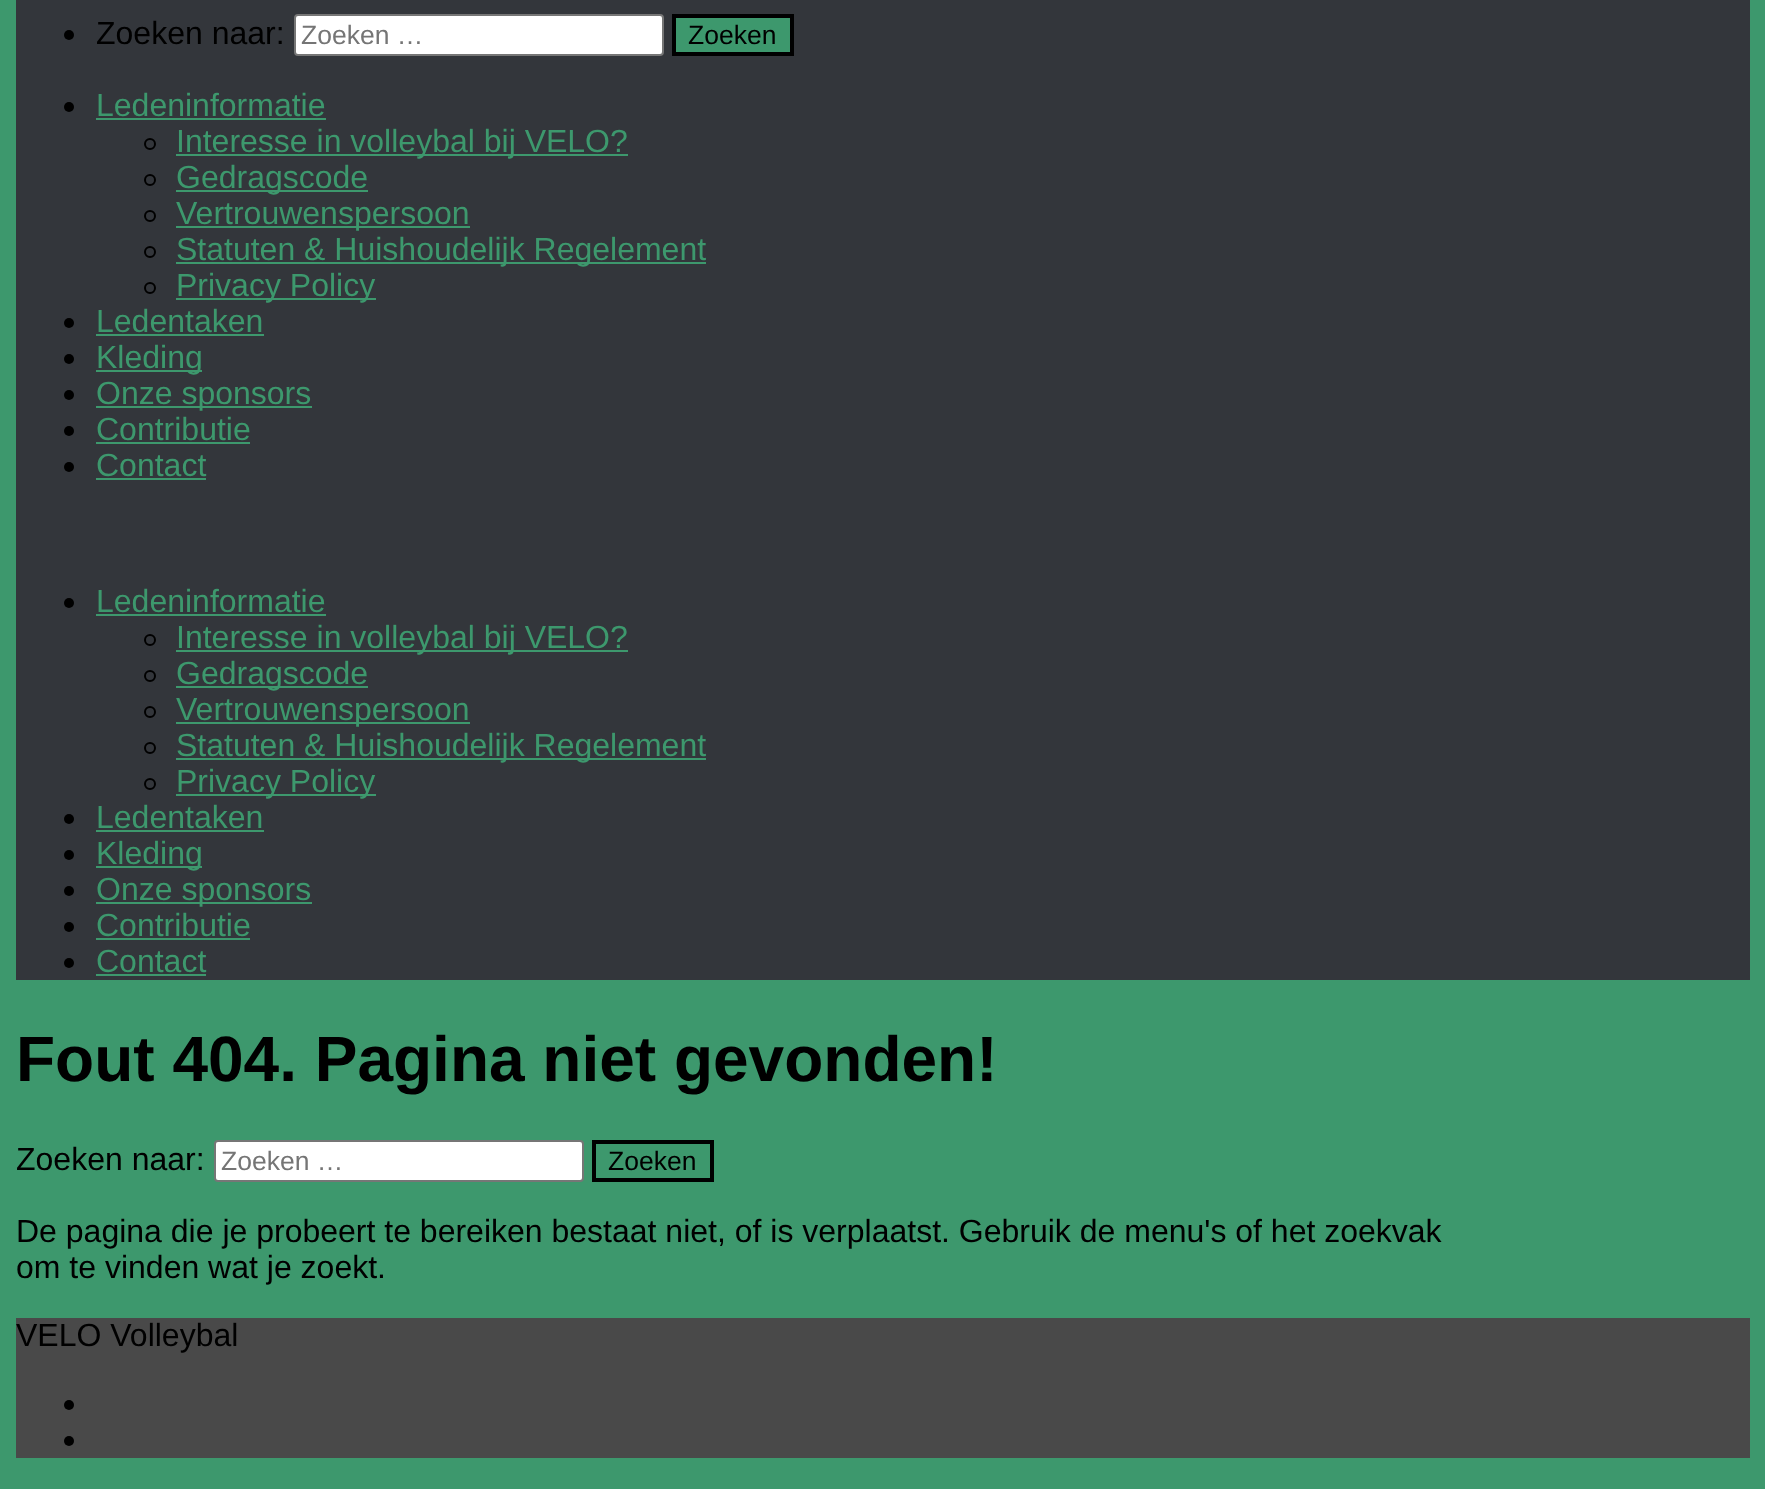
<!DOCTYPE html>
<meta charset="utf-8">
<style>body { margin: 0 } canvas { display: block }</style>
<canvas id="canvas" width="1765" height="1489"></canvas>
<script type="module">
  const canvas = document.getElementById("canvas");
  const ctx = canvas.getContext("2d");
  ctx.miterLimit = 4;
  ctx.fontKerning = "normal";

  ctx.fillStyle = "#3d986d";
  ctx.fillRect(0, 0, 1765, 1489);
  ctx.fillStyle = "#33363b";
  ctx.fillRect(16, 0, 1734, 980);
  ctx.fillStyle = "#000000";
  ctx.beginPath();
  ctx.arc(69, 35, 5, 0, Math.PI * 2);
  ctx.fill();
  ctx.font = "32px Liberation Sans";
  ctx.fillText("Zoeken naar:", 96, 44);
  ctx.fillStyle = "#ffffff";
  ctx.beginPath();
  ctx.roundRect(295, 15, 368, 40, 3);
  ctx.fill();
  ctx.strokeStyle = "#767676";
  ctx.lineWidth = 2;
  ctx.stroke();
  ctx.font = "26.5px Liberation Sans";
  ctx.fillStyle = "#757575";
  ctx.fillText("Zoeken …", 301, 44);
  ctx.fillStyle = "#3d986d";
  ctx.beginPath();
  ctx.rect(674, 16, 118, 38);
  ctx.fill();
  ctx.strokeStyle = "#000000";
  ctx.lineWidth = 4;
  ctx.stroke();
  ctx.fillStyle = "#000000";
  ctx.fillText("Zoeken", 688, 44);
  ctx.beginPath();
  ctx.arc(69, 107, 5, 0, Math.PI * 2);
  ctx.fill();
  ctx.font = "32px Liberation Sans";
  ctx.fillStyle = "#3d986d";
  ctx.fillText("Ledeninformatie", 96, 116);
  ctx.fillRect(96, 118, 230, 2);
  ctx.beginPath();
  ctx.arc(150, 144, 5, 0, Math.PI * 2);
  ctx.lineWidth = 2;
  ctx.stroke();
  ctx.fillRect(176, 154, 452, 2);
  ctx.fillText("Interesse in volleybal bij VELO?", 176, 152);
  ctx.beginPath();
  ctx.arc(150, 180, 5, 0, Math.PI * 2);
  ctx.stroke();
  ctx.fillRect(176, 190, 192, 2);
  ctx.fillText("Gedragscode", 176, 188);
  ctx.beginPath();
  ctx.arc(150, 216, 5, 0, Math.PI * 2);
  ctx.stroke();
  ctx.fillRect(176, 226, 294, 2);
  ctx.fillText("Vertrouwenspersoon", 176, 224);
  ctx.beginPath();
  ctx.arc(150, 252, 5, 0, Math.PI * 2);
  ctx.stroke();
  ctx.fillRect(176, 262, 530, 2);
  ctx.fillText("Statuten & Huishoudelijk Regelement", 176, 260);
  ctx.beginPath();
  ctx.arc(150, 288, 5, 0, Math.PI * 2);
  ctx.stroke();
  ctx.fillRect(176, 298, 200, 2);
  ctx.fillText("Privacy Policy", 176, 296);
  ctx.fillStyle = "#000000";
  ctx.beginPath();
  ctx.arc(69, 323, 5, 0, Math.PI * 2);
  ctx.fill();
  ctx.fillStyle = "#3d986d";
  ctx.fillText("Ledentaken", 96, 332);
  ctx.fillRect(96, 334, 168, 2);
  ctx.fillStyle = "#000000";
  ctx.beginPath();
  ctx.arc(69, 359, 5, 0, Math.PI * 2);
  ctx.fill();
  ctx.fillStyle = "#3d986d";
  ctx.fillRect(96, 370, 106, 2);
  ctx.fillText("Kleding", 96, 368);
  ctx.fillStyle = "#000000";
  ctx.beginPath();
  ctx.arc(69, 395, 5, 0, Math.PI * 2);
  ctx.fill();
  ctx.fillStyle = "#3d986d";
  ctx.fillRect(96, 406, 216, 2);
  ctx.fillText("Onze sponsors", 96, 404);
  ctx.fillStyle = "#000000";
  ctx.beginPath();
  ctx.arc(69, 431, 5, 0, Math.PI * 2);
  ctx.fill();
  ctx.fillStyle = "#3d986d";
  ctx.fillText("Contributie", 96, 440);
  ctx.fillRect(96, 442, 154, 2);
  ctx.fillStyle = "#000000";
  ctx.beginPath();
  ctx.arc(69, 467, 5, 0, Math.PI * 2);
  ctx.fill();
  ctx.fillStyle = "#3d986d";
  ctx.fillText("Contact", 96, 476);
  ctx.fillRect(96, 478, 110, 2);
  ctx.fillStyle = "#000000";
  ctx.beginPath();
  ctx.arc(69, 603, 5, 0, Math.PI * 2);
  ctx.fill();
  ctx.fillStyle = "#3d986d";
  ctx.fillText("Ledeninformatie", 96, 612);
  ctx.fillRect(96, 614, 230, 2);
  ctx.beginPath();
  ctx.arc(150, 640, 5, 0, Math.PI * 2);
  ctx.stroke();
  ctx.fillRect(176, 650, 452, 2);
  ctx.fillText("Interesse in volleybal bij VELO?", 176, 648);
  ctx.beginPath();
  ctx.arc(150, 676, 5, 0, Math.PI * 2);
  ctx.stroke();
  ctx.fillRect(176, 686, 192, 2);
  ctx.fillText("Gedragscode", 176, 684);
  ctx.beginPath();
  ctx.arc(150, 712, 5, 0, Math.PI * 2);
  ctx.stroke();
  ctx.fillRect(176, 722, 294, 2);
  ctx.fillText("Vertrouwenspersoon", 176, 720);
  ctx.beginPath();
  ctx.arc(150, 748, 5, 0, Math.PI * 2);
  ctx.stroke();
  ctx.fillRect(176, 758, 530, 2);
  ctx.fillText("Statuten & Huishoudelijk Regelement", 176, 756);
  ctx.beginPath();
  ctx.arc(150, 784, 5, 0, Math.PI * 2);
  ctx.stroke();
  ctx.fillRect(176, 794, 200, 2);
  ctx.fillText("Privacy Policy", 176, 792);
  ctx.fillStyle = "#000000";
  ctx.beginPath();
  ctx.arc(69, 819, 5, 0, Math.PI * 2);
  ctx.fill();
  ctx.fillStyle = "#3d986d";
  ctx.fillText("Ledentaken", 96, 828);
  ctx.fillRect(96, 830, 168, 2);
  ctx.fillStyle = "#000000";
  ctx.beginPath();
  ctx.arc(69, 855, 5, 0, Math.PI * 2);
  ctx.fill();
  ctx.fillStyle = "#3d986d";
  ctx.fillRect(96, 866, 106, 2);
  ctx.fillText("Kleding", 96, 864);
  ctx.fillStyle = "#000000";
  ctx.beginPath();
  ctx.arc(69, 891, 5, 0, Math.PI * 2);
  ctx.fill();
  ctx.fillStyle = "#3d986d";
  ctx.fillRect(96, 902, 216, 2);
  ctx.fillText("Onze sponsors", 96, 900);
  ctx.fillStyle = "#000000";
  ctx.beginPath();
  ctx.arc(69, 927, 5, 0, Math.PI * 2);
  ctx.fill();
  ctx.fillStyle = "#3d986d";
  ctx.fillText("Contributie", 96, 936);
  ctx.fillRect(96, 938, 154, 2);
  ctx.fillStyle = "#000000";
  ctx.beginPath();
  ctx.arc(69, 963, 5, 0, Math.PI * 2);
  ctx.fill();
  ctx.fillStyle = "#3d986d";
  ctx.fillText("Contact", 96, 972);
  ctx.fillRect(96, 974, 110, 2);
  ctx.font = "bold 64px Liberation Sans";
  ctx.fillStyle = "#000000";
  ctx.fillText("Fout 404. Pagina niet gevonden!", 16, 1081);
  ctx.font = "32px Liberation Sans";
  ctx.fillText("Zoeken naar:", 16, 1170);
  ctx.fillStyle = "#ffffff";
  ctx.beginPath();
  ctx.roundRect(215, 1141, 368, 40, 3);
  ctx.fill();
  ctx.strokeStyle = "#767676";
  ctx.stroke();
  ctx.font = "26.5px Liberation Sans";
  ctx.fillStyle = "#757575";
  ctx.fillText("Zoeken …", 221, 1170);
  ctx.strokeStyle = "#000000";
  ctx.lineWidth = 4;
  ctx.strokeRect(594, 1142, 118, 38);
  ctx.fillStyle = "#000000";
  ctx.fillText("Zoeken", 608, 1170);
  ctx.font = "32px Liberation Sans";
  ctx.fillText("De pagina die je probeert te bereiken bestaat niet, of is verplaatst. Gebruik de menu's of het zoekvak", 16, 1242);
  ctx.fillText("om te vinden wat je zoekt.", 16, 1278);
  ctx.fillStyle = "#494949";
  ctx.fillRect(16, 1318, 1734, 140);
  ctx.fillStyle = "#000000";
  ctx.fillText("VELO Volleybal", 16, 1346);
  ctx.beginPath();
  ctx.arc(69, 1405, 5, 0, Math.PI * 2);
  ctx.fill();
  ctx.beginPath();
  ctx.arc(69, 1441, 5, 0, Math.PI * 2);
  ctx.fill();
</script>
